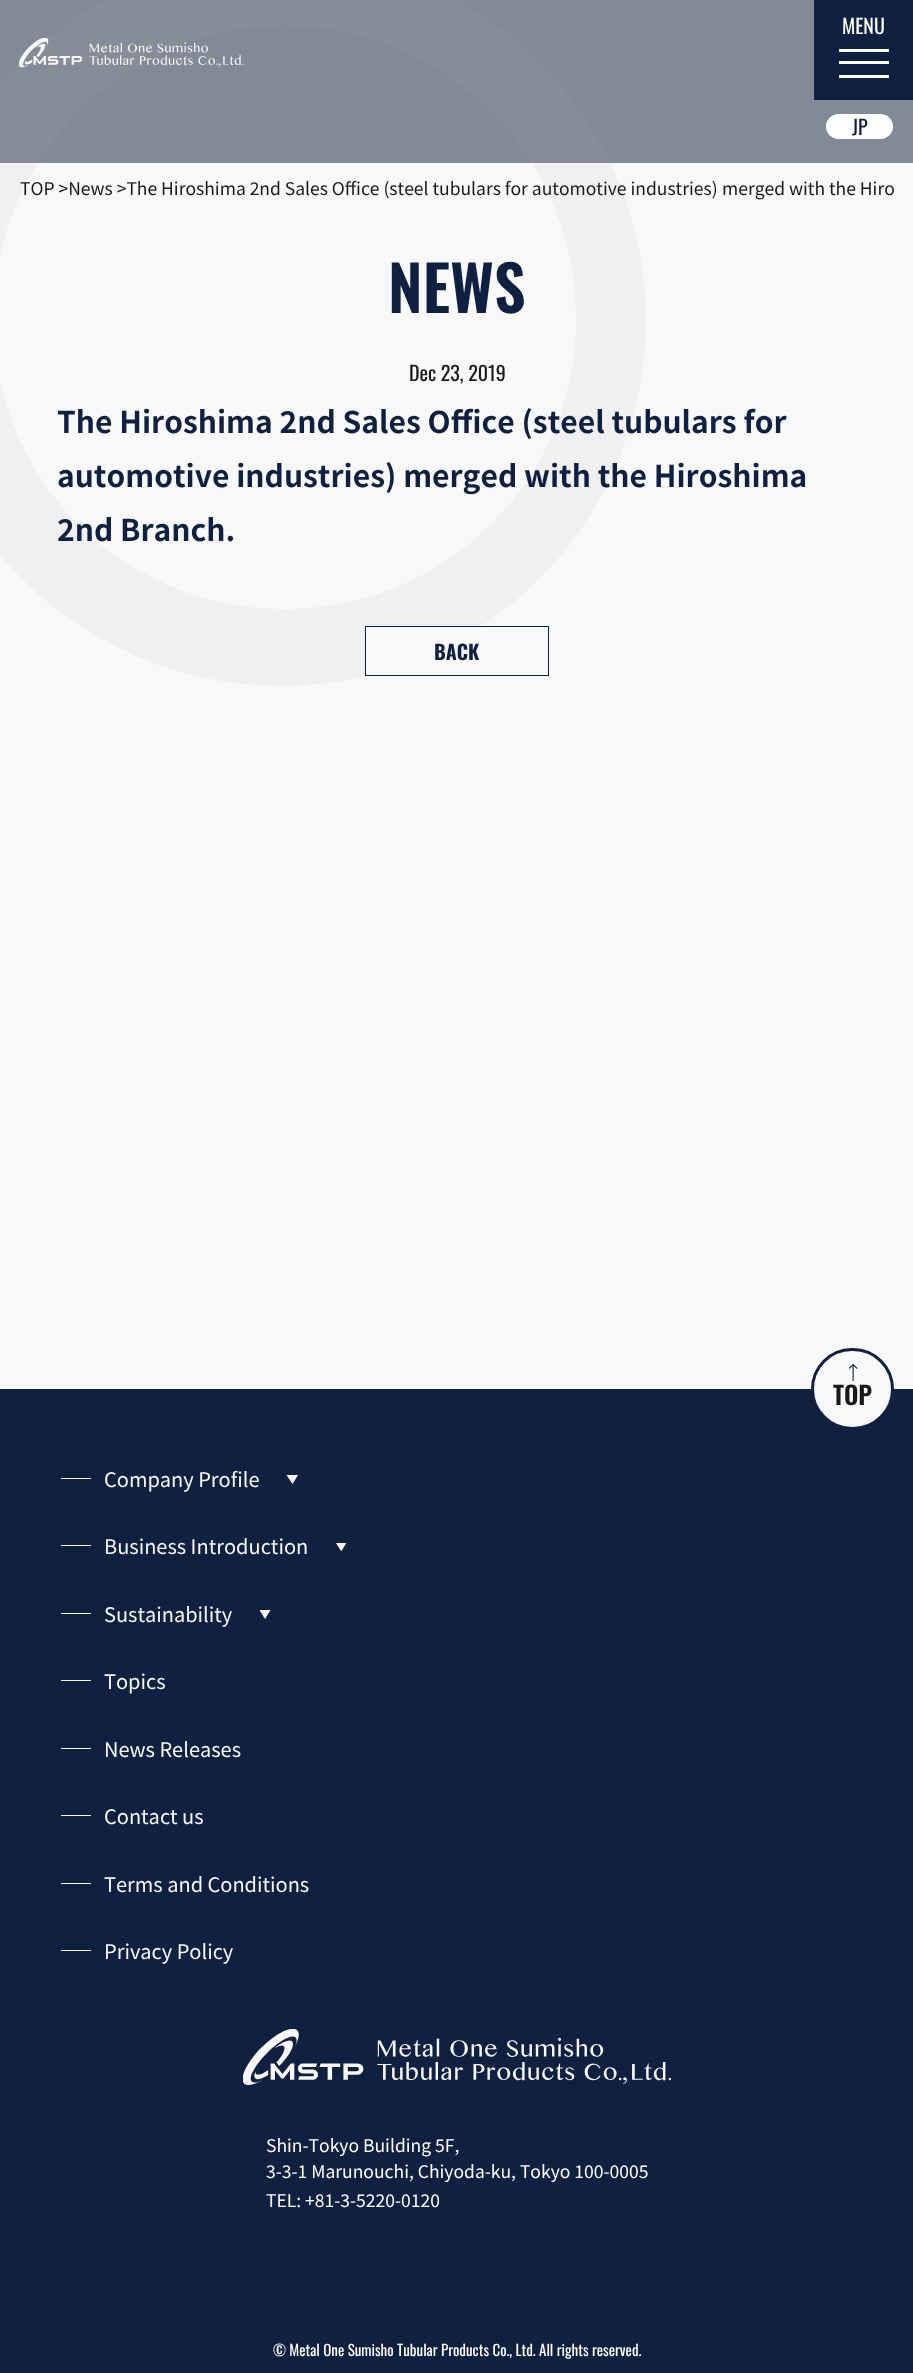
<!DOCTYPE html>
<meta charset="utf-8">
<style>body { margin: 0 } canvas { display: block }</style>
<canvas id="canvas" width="913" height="2373"></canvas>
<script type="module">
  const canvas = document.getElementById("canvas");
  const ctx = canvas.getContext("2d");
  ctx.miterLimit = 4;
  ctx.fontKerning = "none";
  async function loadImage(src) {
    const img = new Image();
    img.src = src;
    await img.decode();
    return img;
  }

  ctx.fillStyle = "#f8f8f8";
  ctx.fillRect(0, 0, 913, 2373);
  ctx.fillStyle = "#828997";
  ctx.fillRect(0, 0, 913, 163);
  ctx.fillStyle = "#102041";
  ctx.fillRect(814, 0, 99, 100);
  ctx.font = "20px Oswald";
  ctx.fillStyle = "#ffffff";
  ctx.fillText("MENU", 842, 34);
  ctx.fillRect(839, 49, 50, 3);
  ctx.fillRect(839, 61, 50, 3);
  ctx.fillRect(839, 75, 50, 3);
  ctx.fillStyle = "rgba(175, 175, 175, 0.1)";
  ctx.beginPath();
  ctx.moveTo(262, -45);
  ctx.bezierCurveTo(429, -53, 583, 54, 631, 217);
  ctx.bezierCurveTo(641, 251, 646, 284, 646, 320);
  ctx.bezierCurveTo(646, 367, 637, 414, 619, 458);
  ctx.bezierCurveTo(597, 514, 560, 564, 514, 602);
  ctx.bezierCurveTo(455, 650, 382, 680, 306, 685);
  ctx.bezierCurveTo(247, 689, 187, 679, 132, 654);
  ctx.bezierCurveTo(-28, 583, -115, 410, -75, 237);
  ctx.bezierCurveTo(-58, 163, -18, 96, 39, 46);
  ctx.bezierCurveTo(101, -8, 180, -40, 262, -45);
  ctx.closePath();
  ctx.moveTo(285, 26);
  ctx.bezierCurveTo(335, 26, 386, 39, 430, 65);
  ctx.bezierCurveTo(609, 168, 627, 420, 465, 547);
  ctx.bezierCurveTo(414, 587, 350, 609, 285, 609);
  ctx.bezierCurveTo(234, 609, 184, 596, 140, 571);
  ctx.bezierCurveTo(-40, 468, -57, 216, 105, 88);
  ctx.bezierCurveTo(156, 48, 220, 26, 285, 26);
  ctx.closePath();
  ctx.fill("evenodd");
  ctx.drawImage(await loadImage("img1.png"), 19, 38, 225, 30);
  ctx.fillStyle = "#ffffff";
  ctx.beginPath();
  ctx.roundRect(826, 114, 67, 25, 12.5);
  ctx.fill();
  ctx.fillStyle = "#102041";
  ctx.fillText("JP", 852, 135);
  ctx.font = "17.5px Noto Sans JP";
  ctx.fillStyle = "#191919";
  ctx.fillText("TOP >News >The Hiroshima 2nd Sales Office (steel tubulars for automotive industries)", 20, 195);
  ctx.fillText("merged with the Hiro", 722, 195);
  ctx.font = "600 62.5px Oswald";
  ctx.fillStyle = "#102041";
  ctx.fillText("NEWS", 388, 313);
  ctx.font = "20px Oswald";
  ctx.fillStyle = "#191919";
  ctx.fillText("Dec 23, 2019", 409, 381);
  ctx.font = "bold 30px Noto Sans JP";
  ctx.fillStyle = "#102041";
  ctx.fillText("The Hiroshima 2nd Sales Office (steel tubulars for", 57, 433);
  ctx.fillText("automotive industries) merged with the Hiroshima", 57, 487);
  ctx.fillText("2nd Branch.", 57, 541);
  ctx.fillStyle = "#f8f8f8";
  ctx.fillRect(366, 627, 113, 48);
  ctx.strokeStyle = "#102041";
  ctx.strokeRect(365.5, 626.5, 183, 49);
  ctx.font = "bold 20px Oswald";
  ctx.fillStyle = "#102041";
  ctx.fillText("BACK", 434, 660);
  ctx.fillRect(0, 1389, 913, 984);
  ctx.fillStyle = "#f8f8f8";
  ctx.beginPath();
  ctx.roundRect(812.5, 1349.5, 80, 79, 39.5);
  ctx.fill();
  ctx.lineWidth = 3;
  ctx.stroke();
  ctx.drawImage(await loadImage("img2.png"), 849, 1364, 9, 17);
  ctx.font = "600 25px Oswald";
  ctx.fillStyle = "#191919";
  ctx.fillText("TOP", 833, 1405);
  ctx.fillStyle = "#f8f8f8";
  ctx.fillRect(61, 1478, 30, 1);
  ctx.font = "20px Noto Sans JP";
  ctx.fillText("Company Profile", 104, 1487);
  ctx.beginPath();
  ctx.moveTo(298, 1475);
  ctx.lineTo(292.5, 1484);
  ctx.lineTo(286.5, 1475);
  ctx.closePath();
  ctx.fill();
  ctx.fillRect(61, 1545, 30, 1);
  ctx.fillText("Business Introduction", 104, 1554);
  ctx.beginPath();
  ctx.moveTo(346, 1543.5);
  ctx.lineTo(346, 1543);
  ctx.lineTo(336, 1543);
  ctx.lineTo(341, 1551);
  ctx.lineTo(341.5, 1551);
  ctx.closePath();
  ctx.fill();
  ctx.fillRect(61, 1613, 30, 1);
  ctx.fillText("Sustainability", 104, 1622);
  ctx.beginPath();
  ctx.moveTo(270.5, 1610);
  ctx.lineTo(265, 1619);
  ctx.lineTo(260, 1611);
  ctx.lineTo(260, 1610);
  ctx.closePath();
  ctx.fill();
  ctx.fillRect(61, 1680, 30, 1);
  ctx.fillText("Topics", 104, 1689);
  ctx.fillRect(61, 1748, 30, 1);
  ctx.fillText("News Releases", 104, 1757);
  ctx.fillRect(61, 1815, 30, 1);
  ctx.fillText("Contact us", 104, 1824);
  ctx.fillRect(61, 1883, 30, 1);
  ctx.fillText("Terms and Conditions", 104, 1892);
  ctx.fillRect(61, 1950, 30, 1);
  ctx.fillText("Privacy Policy", 104, 1959);
  ctx.drawImage(await loadImage("img3.png"), 243, 2029, 428, 56);
  ctx.font = "17.5px Noto Sans JP";
  ctx.fillStyle = "#ffffff";
  ctx.fillText("Shin-Tokyo Building 5F,", 266, 2152);
  ctx.fillText("3-3-1 Marunouchi, Chiyoda-ku, Tokyo 100-0005", 266, 2178);
  ctx.fillText("TEL: +81-3-5220-0120", 266, 2207);
  ctx.font = "15px Oswald";
  ctx.fillText("© Metal One Sumisho Tubular Products Co., Ltd. All rights reserved.", 273, 2356);
</script>
